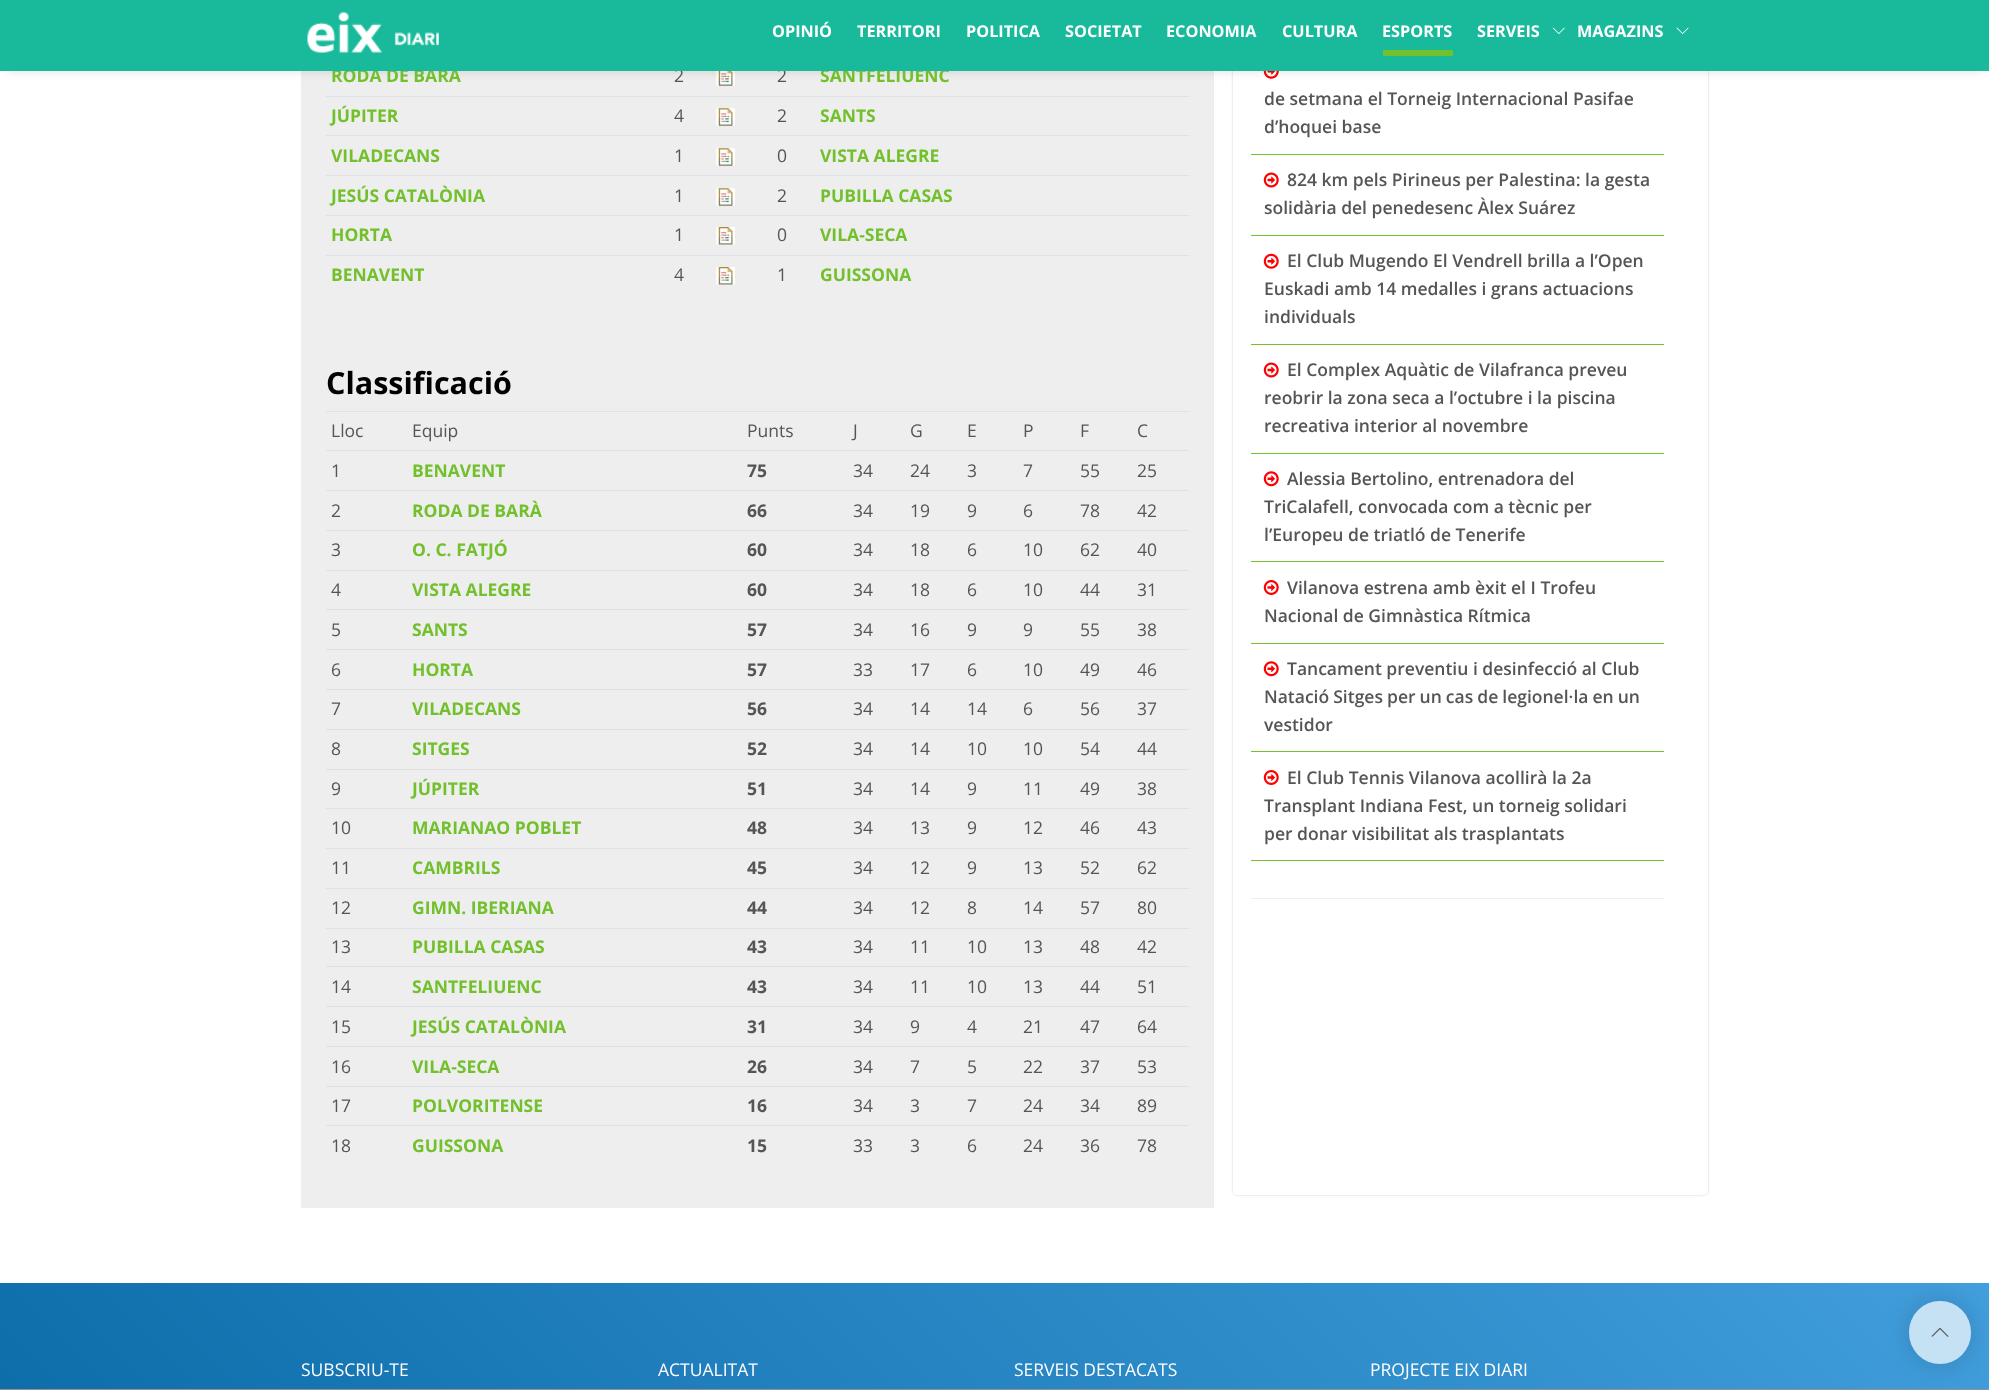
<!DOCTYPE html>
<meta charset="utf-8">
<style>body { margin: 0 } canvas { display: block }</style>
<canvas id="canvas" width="1989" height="1394"></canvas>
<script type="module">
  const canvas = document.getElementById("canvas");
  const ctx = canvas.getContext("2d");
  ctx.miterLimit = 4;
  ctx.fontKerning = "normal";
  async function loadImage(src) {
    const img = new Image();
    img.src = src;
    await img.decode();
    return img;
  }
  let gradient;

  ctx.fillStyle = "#ffffff";
  ctx.fillRect(0, 0, 1989, 1394);
  ctx.fillStyle = "#eeeeee";
  ctx.fillRect(301, 71, 913, 1137);
  ctx.drawImage(await loadImage("img4.png"), 716, 71, 19, 15);
  ctx.save();
  ctx.beginPath();
  ctx.moveTo(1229, 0);
  ctx.lineTo(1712, 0);
  ctx.lineTo(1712, 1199);
  ctx.lineTo(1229, 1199);
  ctx.closePath();
  ctx.moveTo(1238, -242);
  ctx.lineTo(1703, -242);
  ctx.bezierCurveTo(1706, -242, 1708, -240, 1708, -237);
  ctx.lineTo(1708, 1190);
  ctx.bezierCurveTo(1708, 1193, 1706, 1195, 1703, 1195);
  ctx.lineTo(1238, 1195);
  ctx.bezierCurveTo(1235, 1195, 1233, 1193, 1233, 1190);
  ctx.lineTo(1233, -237);
  ctx.bezierCurveTo(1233, -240, 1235, -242, 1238, -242);
  ctx.closePath();
  ctx.clip("evenodd");
  ctx.fillStyle = "#cccccc";
  ctx.filter = "blur(1px)";
  ctx.beginPath();
  ctx.roundRect(1233, -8, 475, 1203, 5);
  ctx.fill();
  ctx.filter = "none";
  ctx.restore();
  ctx.drawImage(await loadImage("img7.png"), 1263, 71, 16, 8);
  ctx.fillStyle = "rgba(0, 0, 0, 0.15)";
  ctx.filter = "blur(6px)";
  ctx.beginPath();
  ctx.rect(8, 13, 1975, 57);
  ctx.fill();
  ctx.filter = "none";
  ctx.font = "bold 17.5px Open Sans";
  ctx.fillStyle = "#72c02c";
  ctx.fillText("RODA DE BARÀ", 331, 82);
  ctx.font = "17.5px Open Sans";
  ctx.fillStyle = "#555555";
  ctx.fillText("2", 674, 82);
  ctx.fillText("2", 777, 82);
  ctx.font = "bold 17.5px Open Sans";
  ctx.fillStyle = "#72c02c";
  ctx.fillText("SANTFELIUENC", 820, 82);
  ctx.fillStyle = "#18ba9b";
  ctx.fillRect(0, 0, 1989, 71);
  ctx.drawImage(await loadImage("img1.png"), 307, 12, 132, 41);
  ctx.font = "bold 16.25px Open Sans";
  ctx.fillStyle = "#ffffff";
  ctx.fillText("OPINIÓ", 772, 37);
  ctx.fillText("TERRITORI", 857, 37);
  ctx.fillText("POLITICA", 966, 37);
  ctx.fillText("SOCIETAT", 1065, 37);
  ctx.fillText("ECONOMIA", 1166, 37);
  ctx.fillText("CULTURA", 1282, 37);
  ctx.fillStyle = "#72c02c";
  ctx.fillRect(1383, 50, 70, 6);
  ctx.fillStyle = "#ffffff";
  ctx.fillText("ESPORTS", 1382, 37);
  ctx.fillText("SERVEIS", 1477, 37);
  ctx.drawImage(await loadImage("img2.png"), 1552, 27, 13, 7);
  ctx.fillText("MAGAZINS", 1577, 37);
  ctx.drawImage(await loadImage("img3.png"), 1676, 27, 13, 7);
  ctx.font = "bold 17.5px Open Sans";
  ctx.fillStyle = "#72c02c";
  ctx.fillText("JÚPITER", 331, 122);
  ctx.font = "17.5px Open Sans";
  ctx.fillStyle = "#555555";
  ctx.fillText("4", 674, 122);
  ctx.drawImage(await loadImage("img5.png"), 716, 108, 19, 18);
  ctx.fillText("2", 777, 122);
  ctx.fillStyle = "#dee2e6";
  ctx.fillRect(326, 96, 863, 1);
  ctx.font = "bold 17.5px Open Sans";
  ctx.fillStyle = "#72c02c";
  ctx.fillText("SANTS", 820, 122);
  ctx.fillText("VILADECANS", 331, 162);
  ctx.font = "17.5px Open Sans";
  ctx.fillStyle = "#555555";
  ctx.fillText("1", 674, 162);
  ctx.drawImage(await loadImage("img5.png"), 716, 148, 19, 18);
  ctx.fillText("0", 777, 162);
  ctx.fillStyle = "#dee2e6";
  ctx.fillRect(326, 135, 863, 1);
  ctx.font = "bold 17.5px Open Sans";
  ctx.fillStyle = "#72c02c";
  ctx.fillText("VISTA ALEGRE", 820, 162);
  ctx.fillText("JESÚS CATALÒNIA", 331, 202);
  ctx.font = "17.5px Open Sans";
  ctx.fillStyle = "#555555";
  ctx.fillText("1", 674, 202);
  ctx.drawImage(await loadImage("img5.png"), 716, 188, 19, 18);
  ctx.fillText("2", 777, 202);
  ctx.fillStyle = "#dee2e6";
  ctx.fillRect(326, 175, 863, 1);
  ctx.font = "bold 17.5px Open Sans";
  ctx.fillStyle = "#72c02c";
  ctx.fillText("PUBILLA CASAS", 820, 202);
  ctx.fillText("HORTA", 331, 241);
  ctx.font = "17.5px Open Sans";
  ctx.fillStyle = "#555555";
  ctx.fillText("1", 674, 241);
  ctx.drawImage(await loadImage("img6.png"), 716, 227, 19, 18);
  ctx.fillText("0", 777, 241);
  ctx.fillStyle = "#dee2e6";
  ctx.fillRect(326, 215, 863, 1);
  ctx.font = "bold 17.5px Open Sans";
  ctx.fillStyle = "#72c02c";
  ctx.fillText("VILA-SECA", 820, 241);
  ctx.fillText("BENAVENT", 331, 281);
  ctx.font = "17.5px Open Sans";
  ctx.fillStyle = "#555555";
  ctx.fillText("4", 674, 281);
  ctx.drawImage(await loadImage("img6.png"), 716, 267, 19, 18);
  ctx.fillText("1", 777, 281);
  ctx.fillStyle = "#dee2e6";
  ctx.fillRect(326, 255, 863, 1);
  ctx.font = "bold 17.5px Open Sans";
  ctx.fillStyle = "#72c02c";
  ctx.fillText("GUISSONA", 820, 281);
  ctx.font = "bold 30.5px Open Sans";
  ctx.fillStyle = "#000000";
  ctx.fillText("Classificació", 326, 394);
  ctx.font = "17.5px Open Sans";
  ctx.fillStyle = "#555555";
  ctx.fillText("Lloc", 331, 437);
  ctx.fillText("Equip", 412, 437);
  ctx.fillText("Punts", 747, 437);
  ctx.fillText("J", 853, 437);
  ctx.fillText("G", 910, 437);
  ctx.fillText("E", 967, 437);
  ctx.fillText("P", 1023, 437);
  ctx.fillText("F", 1080, 437);
  ctx.fillStyle = "#dee2e6";
  ctx.fillRect(326, 411, 863, 1);
  ctx.fillStyle = "#555555";
  ctx.fillText("C", 1137, 437);
  ctx.fillText("1", 331, 477);
  ctx.font = "bold 17.5px Open Sans";
  ctx.fillStyle = "#72c02c";
  ctx.fillText("BENAVENT", 412, 477);
  ctx.fillStyle = "#555555";
  ctx.fillText("75", 747, 477);
  ctx.font = "17.5px Open Sans";
  ctx.fillText("34", 853, 477);
  ctx.fillText("24", 910, 477);
  ctx.fillText("3", 967, 477);
  ctx.fillText("7", 1023, 477);
  ctx.fillText("55", 1080, 477);
  ctx.fillStyle = "#dee2e6";
  ctx.fillRect(326, 450, 863, 1);
  ctx.fillStyle = "#555555";
  ctx.fillText("25", 1137, 477);
  ctx.fillText("2", 331, 517);
  ctx.font = "bold 17.5px Open Sans";
  ctx.fillStyle = "#72c02c";
  ctx.fillText("RODA DE BARÀ", 412, 517);
  ctx.fillStyle = "#555555";
  ctx.fillText("66", 747, 517);
  ctx.font = "17.5px Open Sans";
  ctx.fillText("34", 853, 517);
  ctx.fillText("19", 910, 517);
  ctx.fillText("9", 967, 517);
  ctx.fillText("6", 1023, 517);
  ctx.fillText("78", 1080, 517);
  ctx.fillStyle = "#dee2e6";
  ctx.fillRect(326, 490, 863, 1);
  ctx.fillStyle = "#555555";
  ctx.fillText("42", 1137, 517);
  ctx.fillText("3", 331, 556);
  ctx.font = "bold 17.5px Open Sans";
  ctx.fillStyle = "#72c02c";
  ctx.fillText("O. C. FATJÓ", 412, 556);
  ctx.fillStyle = "#555555";
  ctx.fillText("60", 747, 556);
  ctx.font = "17.5px Open Sans";
  ctx.fillText("34", 853, 556);
  ctx.fillText("18", 910, 556);
  ctx.fillText("6", 967, 556);
  ctx.fillText("10", 1023, 556);
  ctx.fillText("62", 1080, 556);
  ctx.fillStyle = "#dee2e6";
  ctx.fillRect(326, 530, 863, 1);
  ctx.fillStyle = "#555555";
  ctx.fillText("40", 1137, 556);
  ctx.fillText("4", 331, 596);
  ctx.font = "bold 17.5px Open Sans";
  ctx.fillStyle = "#72c02c";
  ctx.fillText("VISTA ALEGRE", 412, 596);
  ctx.fillStyle = "#555555";
  ctx.fillText("60", 747, 596);
  ctx.font = "17.5px Open Sans";
  ctx.fillText("34", 853, 596);
  ctx.fillText("18", 910, 596);
  ctx.fillText("6", 967, 596);
  ctx.fillText("10", 1023, 596);
  ctx.fillText("44", 1080, 596);
  ctx.fillStyle = "#dee2e6";
  ctx.fillRect(326, 570, 863, 1);
  ctx.fillStyle = "#555555";
  ctx.fillText("31", 1137, 596);
  ctx.fillText("5", 331, 636);
  ctx.font = "bold 17.5px Open Sans";
  ctx.fillStyle = "#72c02c";
  ctx.fillText("SANTS", 412, 636);
  ctx.fillStyle = "#555555";
  ctx.fillText("57", 747, 636);
  ctx.font = "17.5px Open Sans";
  ctx.fillText("34", 853, 636);
  ctx.fillText("16", 910, 636);
  ctx.fillText("9", 967, 636);
  ctx.fillText("9", 1023, 636);
  ctx.fillText("55", 1080, 636);
  ctx.fillStyle = "#dee2e6";
  ctx.fillRect(326, 609, 863, 1);
  ctx.fillStyle = "#555555";
  ctx.fillText("38", 1137, 636);
  ctx.fillText("6", 331, 676);
  ctx.font = "bold 17.5px Open Sans";
  ctx.fillStyle = "#72c02c";
  ctx.fillText("HORTA", 412, 676);
  ctx.fillStyle = "#555555";
  ctx.fillText("57", 747, 676);
  ctx.font = "17.5px Open Sans";
  ctx.fillText("33", 853, 676);
  ctx.fillText("17", 910, 676);
  ctx.fillText("6", 967, 676);
  ctx.fillText("10", 1023, 676);
  ctx.fillText("49", 1080, 676);
  ctx.fillStyle = "#dee2e6";
  ctx.fillRect(326, 649, 863, 1);
  ctx.fillStyle = "#555555";
  ctx.fillText("46", 1137, 676);
  ctx.fillText("7", 331, 715);
  ctx.font = "bold 17.5px Open Sans";
  ctx.fillStyle = "#72c02c";
  ctx.fillText("VILADECANS", 412, 715);
  ctx.fillStyle = "#555555";
  ctx.fillText("56", 747, 715);
  ctx.font = "17.5px Open Sans";
  ctx.fillText("34", 853, 715);
  ctx.fillText("14", 910, 715);
  ctx.fillText("14", 967, 715);
  ctx.fillText("6", 1023, 715);
  ctx.fillText("56", 1080, 715);
  ctx.fillStyle = "#dee2e6";
  ctx.fillRect(326, 689, 863, 1);
  ctx.fillStyle = "#555555";
  ctx.fillText("37", 1137, 715);
  ctx.fillText("8", 331, 755);
  ctx.font = "bold 17.5px Open Sans";
  ctx.fillStyle = "#72c02c";
  ctx.fillText("SITGES", 412, 755);
  ctx.fillStyle = "#555555";
  ctx.fillText("52", 747, 755);
  ctx.font = "17.5px Open Sans";
  ctx.fillText("34", 853, 755);
  ctx.fillText("14", 910, 755);
  ctx.fillText("10", 967, 755);
  ctx.fillText("10", 1023, 755);
  ctx.fillText("54", 1080, 755);
  ctx.fillStyle = "#dee2e6";
  ctx.fillRect(326, 729, 863, 1);
  ctx.fillStyle = "#555555";
  ctx.fillText("44", 1137, 755);
  ctx.fillText("9", 331, 795);
  ctx.font = "bold 17.5px Open Sans";
  ctx.fillStyle = "#72c02c";
  ctx.fillText("JÚPITER", 412, 795);
  ctx.fillStyle = "#555555";
  ctx.fillText("51", 747, 795);
  ctx.font = "17.5px Open Sans";
  ctx.fillText("34", 853, 795);
  ctx.fillText("14", 910, 795);
  ctx.fillText("9", 967, 795);
  ctx.fillText("11", 1023, 795);
  ctx.fillText("49", 1080, 795);
  ctx.fillStyle = "#dee2e6";
  ctx.fillRect(326, 769, 863, 1);
  ctx.fillStyle = "#555555";
  ctx.fillText("38", 1137, 795);
  ctx.fillText("10", 331, 834);
  ctx.font = "bold 17.5px Open Sans";
  ctx.fillStyle = "#72c02c";
  ctx.fillText("MARIANAO POBLET", 412, 834);
  ctx.fillStyle = "#555555";
  ctx.fillText("48", 747, 834);
  ctx.font = "17.5px Open Sans";
  ctx.fillText("34", 853, 834);
  ctx.fillText("13", 910, 834);
  ctx.fillText("9", 967, 834);
  ctx.fillText("12", 1023, 834);
  ctx.fillText("46", 1080, 834);
  ctx.fillStyle = "#dee2e6";
  ctx.fillRect(326, 808, 863, 1);
  ctx.fillStyle = "#555555";
  ctx.fillText("43", 1137, 834);
  ctx.fillText("11", 331, 874);
  ctx.font = "bold 17.5px Open Sans";
  ctx.fillStyle = "#72c02c";
  ctx.fillText("CAMBRILS", 412, 874);
  ctx.fillStyle = "#555555";
  ctx.fillText("45", 747, 874);
  ctx.font = "17.5px Open Sans";
  ctx.fillText("34", 853, 874);
  ctx.fillText("12", 910, 874);
  ctx.fillText("9", 967, 874);
  ctx.fillText("13", 1023, 874);
  ctx.fillText("52", 1080, 874);
  ctx.fillStyle = "#dee2e6";
  ctx.fillRect(326, 848, 863, 1);
  ctx.fillStyle = "#555555";
  ctx.fillText("62", 1137, 874);
  ctx.fillText("12", 331, 914);
  ctx.font = "bold 17.5px Open Sans";
  ctx.fillStyle = "#72c02c";
  ctx.fillText("GIMN. IBERIANA", 412, 914);
  ctx.fillStyle = "#555555";
  ctx.fillText("44", 747, 914);
  ctx.font = "17.5px Open Sans";
  ctx.fillText("34", 853, 914);
  ctx.fillText("12", 910, 914);
  ctx.fillText("8", 967, 914);
  ctx.fillText("14", 1023, 914);
  ctx.fillText("57", 1080, 914);
  ctx.fillStyle = "#dee2e6";
  ctx.fillRect(326, 888, 863, 1);
  ctx.fillStyle = "#555555";
  ctx.fillText("80", 1137, 914);
  ctx.fillText("13", 331, 953);
  ctx.font = "bold 17.5px Open Sans";
  ctx.fillStyle = "#72c02c";
  ctx.fillText("PUBILLA CASAS", 412, 953);
  ctx.fillStyle = "#555555";
  ctx.fillText("43", 747, 953);
  ctx.font = "17.5px Open Sans";
  ctx.fillText("34", 853, 953);
  ctx.fillText("11", 910, 953);
  ctx.fillText("10", 967, 953);
  ctx.fillText("13", 1023, 953);
  ctx.fillText("48", 1080, 953);
  ctx.fillStyle = "#dee2e6";
  ctx.fillRect(326, 928, 863, 1);
  ctx.fillStyle = "#555555";
  ctx.fillText("42", 1137, 953);
  ctx.fillText("14", 331, 993);
  ctx.font = "bold 17.5px Open Sans";
  ctx.fillStyle = "#72c02c";
  ctx.fillText("SANTFELIUENC", 412, 993);
  ctx.fillStyle = "#555555";
  ctx.fillText("43", 747, 993);
  ctx.font = "17.5px Open Sans";
  ctx.fillText("34", 853, 993);
  ctx.fillText("11", 910, 993);
  ctx.fillText("10", 967, 993);
  ctx.fillText("13", 1023, 993);
  ctx.fillText("44", 1080, 993);
  ctx.fillStyle = "#dee2e6";
  ctx.fillRect(326, 966, 863, 1);
  ctx.fillStyle = "#555555";
  ctx.fillText("51", 1137, 993);
  ctx.fillText("15", 331, 1033);
  ctx.font = "bold 17.5px Open Sans";
  ctx.fillStyle = "#72c02c";
  ctx.fillText("JESÚS CATALÒNIA", 412, 1033);
  ctx.fillStyle = "#555555";
  ctx.fillText("31", 747, 1033);
  ctx.font = "17.5px Open Sans";
  ctx.fillText("34", 853, 1033);
  ctx.fillText("9", 910, 1033);
  ctx.fillText("4", 967, 1033);
  ctx.fillText("21", 1023, 1033);
  ctx.fillText("47", 1080, 1033);
  ctx.fillStyle = "#dee2e6";
  ctx.fillRect(326, 1006, 863, 1);
  ctx.fillStyle = "#555555";
  ctx.fillText("64", 1137, 1033);
  ctx.fillText("16", 331, 1073);
  ctx.font = "bold 17.5px Open Sans";
  ctx.fillStyle = "#72c02c";
  ctx.fillText("VILA-SECA", 412, 1073);
  ctx.fillStyle = "#555555";
  ctx.fillText("26", 747, 1073);
  ctx.font = "17.5px Open Sans";
  ctx.fillText("34", 853, 1073);
  ctx.fillText("7", 910, 1073);
  ctx.fillText("5", 967, 1073);
  ctx.fillText("22", 1023, 1073);
  ctx.fillText("37", 1080, 1073);
  ctx.fillStyle = "#dee2e6";
  ctx.fillRect(326, 1046, 863, 1);
  ctx.fillStyle = "#555555";
  ctx.fillText("53", 1137, 1073);
  ctx.fillText("17", 331, 1112);
  ctx.font = "bold 17.5px Open Sans";
  ctx.fillStyle = "#72c02c";
  ctx.fillText("POLVORITENSE", 412, 1112);
  ctx.fillStyle = "#555555";
  ctx.fillText("16", 747, 1112);
  ctx.font = "17.5px Open Sans";
  ctx.fillText("34", 853, 1112);
  ctx.fillText("3", 910, 1112);
  ctx.fillText("7", 967, 1112);
  ctx.fillText("24", 1023, 1112);
  ctx.fillText("34", 1080, 1112);
  ctx.fillStyle = "#dee2e6";
  ctx.fillRect(326, 1086, 863, 1);
  ctx.fillStyle = "#555555";
  ctx.fillText("89", 1137, 1112);
  ctx.fillText("18", 331, 1152);
  ctx.font = "bold 17.5px Open Sans";
  ctx.fillStyle = "#72c02c";
  ctx.fillText("GUISSONA", 412, 1152);
  ctx.fillStyle = "#555555";
  ctx.fillText("15", 747, 1152);
  ctx.font = "17.5px Open Sans";
  ctx.fillText("33", 853, 1152);
  ctx.fillText("3", 910, 1152);
  ctx.fillText("6", 967, 1152);
  ctx.fillText("24", 1023, 1152);
  ctx.fillText("36", 1080, 1152);
  ctx.fillStyle = "#dee2e6";
  ctx.fillRect(326, 1125, 863, 1);
  ctx.fillStyle = "#555555";
  ctx.fillText("78", 1137, 1152);
  ctx.fillStyle = "#72c02c";
  ctx.fillRect(1251, 154, 413, 1);
  ctx.font = "600 17.5px Open Sans";
  ctx.fillStyle = "#555555";
  ctx.fillText("de setmana el Torneig Internacional Pasifae", 1264, 105);
  ctx.fillText("d’hoquei base", 1264, 133);
  ctx.fillStyle = "#72c02c";
  ctx.fillRect(1251, 235, 413, 1);
  ctx.drawImage(await loadImage("img8.png"), 1263, 172, 16, 16);
  ctx.fillStyle = "#555555";
  ctx.fillText("824 km pels Pirineus per Palestina: la gesta", 1287, 186);
  ctx.fillText("solidària del penedesenc Àlex Suárez", 1264, 214);
  ctx.fillStyle = "#72c02c";
  ctx.fillRect(1251, 344, 413, 1);
  ctx.drawImage(await loadImage("img9.png"), 1263, 253, 16, 16);
  ctx.fillStyle = "#555555";
  ctx.fillText("El Club Mugendo El Vendrell brilla a l’Open", 1287, 267);
  ctx.fillText("Euskadi amb 14 medalles i grans actuacions", 1264, 295);
  ctx.fillText("individuals", 1264, 323);
  ctx.fillStyle = "#72c02c";
  ctx.fillRect(1251, 453, 413, 1);
  ctx.drawImage(await loadImage("img8.png"), 1263, 362, 16, 16);
  ctx.fillStyle = "#555555";
  ctx.fillText("El Complex Aquàtic de Vilafranca preveu", 1287, 376);
  ctx.fillText("reobrir la zona seca a l’octubre i la piscina", 1264, 404);
  ctx.fillText("recreativa interior al novembre", 1264, 432);
  ctx.fillStyle = "#72c02c";
  ctx.fillRect(1251, 561, 413, 1);
  ctx.drawImage(await loadImage("img10.png"), 1263, 471, 16, 16);
  ctx.fillStyle = "#555555";
  ctx.fillText("Alessia Bertolino, entrenadora del", 1287, 485);
  ctx.fillText("TriCalafell, convocada com a tècnic per", 1264, 513);
  ctx.fillText("l’Europeu de triatló de Tenerife", 1264, 541);
  ctx.fillStyle = "#72c02c";
  ctx.fillRect(1251, 643, 413, 1);
  ctx.drawImage(await loadImage("img11.png"), 1263, 580, 16, 15);
  ctx.fillStyle = "#555555";
  ctx.fillText("Vilanova estrena amb èxit el I Trofeu", 1287, 594);
  ctx.fillText("Nacional de Gimnàstica Rítmica", 1264, 622);
  ctx.fillStyle = "#72c02c";
  ctx.fillRect(1251, 751, 413, 1);
  ctx.drawImage(await loadImage("img10.png"), 1263, 661, 16, 16);
  ctx.fillStyle = "#555555";
  ctx.fillText("Tancament preventiu i desinfecció al Club", 1287, 675);
  ctx.wordSpacing = "-0.5px";
  ctx.fillText("Natació Sitges per un cas de legionel·la en un", 1264, 703);
  ctx.wordSpacing = "0px";
  ctx.fillText("vestidor", 1264, 731);
  ctx.fillStyle = "#72c02c";
  ctx.fillRect(1251, 860, 413, 1);
  ctx.drawImage(await loadImage("img11.png"), 1263, 770, 16, 15);
  ctx.fillStyle = "#555555";
  ctx.fillText("El Club Tennis Vilanova acollirà la 2a", 1287, 784);
  ctx.fillText("Transplant Indiana Fest, un torneig solidari", 1264, 812);
  ctx.fillText("per donar visibilitat als trasplantats", 1264, 840);
  ctx.fillStyle = "#eeeeee";
  ctx.fillRect(1251, 898, 413, 1);
  gradient = ctx.createLinearGradient(1649, 942, 341, 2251);
  gradient.addColorStop(0, "#429edc");
  gradient.addColorStop(1, "#00629e");
  ctx.fillStyle = gradient;
  ctx.fillRect(0, 1283, 1989, 106);
  ctx.font = "17.5px Open Sans";
  ctx.fillStyle = "#ffffff";
  ctx.fillText("SUBSCRIU-TE", 301, 1376);
  ctx.fillText("ACTUALITAT", 658, 1376);
  ctx.fillText("SERVEIS DESTACATS", 1014, 1376);
  ctx.fillText("PROJECTE EIX DIARI", 1370, 1376);
  ctx.save();
  ctx.beginPath();
  ctx.moveTo(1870, 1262);
  ctx.lineTo(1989, 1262);
  ctx.lineTo(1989, 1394);
  ctx.lineTo(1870, 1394);
  ctx.closePath();
  ctx.moveTo(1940, 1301);
  ctx.bezierCurveTo(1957, 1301, 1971, 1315, 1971, 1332);
  ctx.lineTo(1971, 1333);
  ctx.bezierCurveTo(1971, 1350, 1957, 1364, 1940, 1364);
  ctx.bezierCurveTo(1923, 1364, 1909, 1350, 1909, 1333);
  ctx.lineTo(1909, 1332);
  ctx.bezierCurveTo(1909, 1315, 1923, 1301, 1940, 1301);
  ctx.closePath();
  ctx.clip("evenodd");
  ctx.fillStyle = "rgba(0, 0, 0, 0.15)";
  ctx.filter = "blur(12.5px)";
  ctx.beginPath();
  ctx.roundRect(1909, 1301, 62, 63, 31);
  ctx.fill();
  ctx.filter = "none";
  ctx.restore();
  ctx.fillStyle = "rgba(255, 255, 255, 0.7)";
  ctx.beginPath();
  ctx.roundRect(1909, 1301, 62, 63, 31);
  ctx.fill();
  ctx.drawImage(await loadImage("img12.png"), 1931, 1327, 18, 10);
  ctx.fillStyle = "#929090";
  ctx.fillRect(0, 1389, 1989, 1);
</script>
